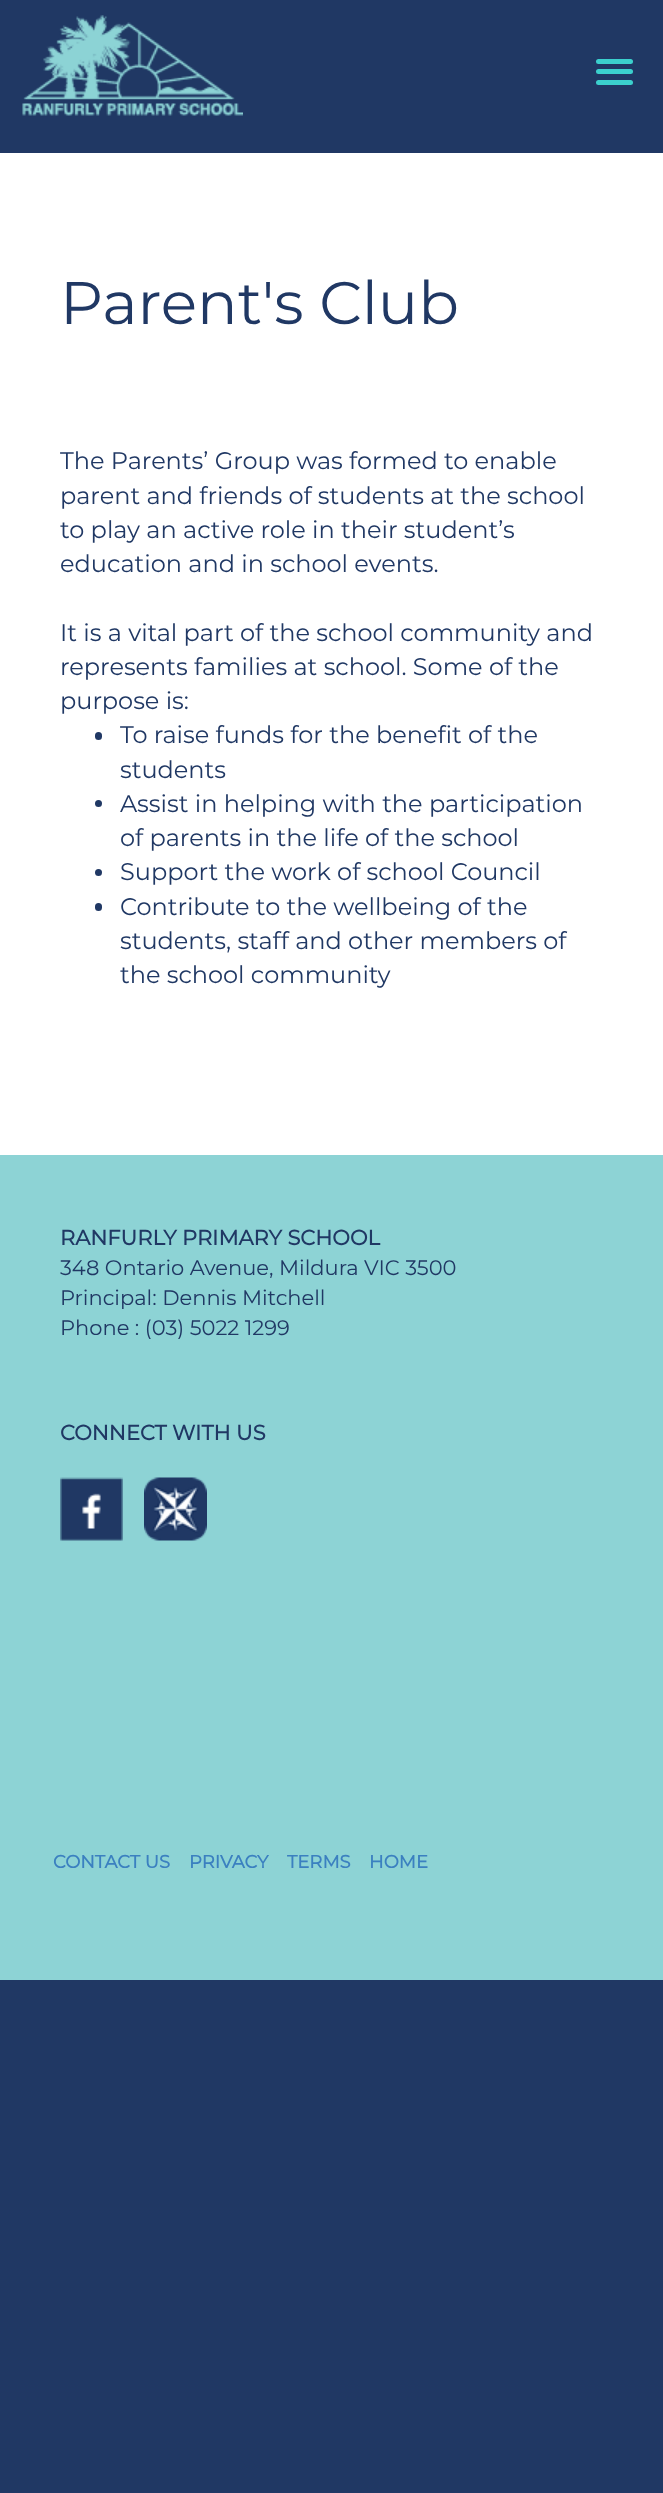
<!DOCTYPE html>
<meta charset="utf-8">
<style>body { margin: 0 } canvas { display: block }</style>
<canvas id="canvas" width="663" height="2493"></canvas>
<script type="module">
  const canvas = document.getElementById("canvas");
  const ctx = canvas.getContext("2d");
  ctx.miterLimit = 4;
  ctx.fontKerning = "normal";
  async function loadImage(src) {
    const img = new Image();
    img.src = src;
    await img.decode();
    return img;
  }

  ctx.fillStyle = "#203864";
  ctx.fillRect(0, 0, 663, 2493);
  ctx.drawImage(await loadImage("img1.png"), 22, 15, 221, 101);
  ctx.fillStyle = "#3bd0cd";
  ctx.beginPath();
  ctx.roundRect(596, 59, 37, 5, 2.5);
  ctx.fill();
  ctx.beginPath();
  ctx.roundRect(596, 69, 37, 5, 2.5);
  ctx.fill();
  ctx.beginPath();
  ctx.roundRect(596, 80, 37, 5, 2.5);
  ctx.fill();
  ctx.fillStyle = "#ffffff";
  ctx.fillRect(0, 153, 663, 1002);
  ctx.font = "100 60px Montserrat";
  ctx.fillStyle = "#203864";
  ctx.fillText("Parent's Club", 60, 324);
  ctx.font = "100 24px Montserrat";
  ctx.fillText("The Parents’ Group was formed to enable", 60, 469);
  ctx.fillText("parent and friends of students at the school", 60, 504);
  ctx.fillText("to play an active role in their student’s", 60, 538);
  ctx.fillText("education and in school events.", 60, 572);
  ctx.fillText("It is a vital part of the school community and", 60, 641);
  ctx.fillText("represents families at school. Some of the", 60, 675);
  ctx.fillText("purpose is:", 60, 709);
  ctx.beginPath();
  ctx.roundRect(95, 732, 7, 8, 3.5);
  ctx.fill();
  ctx.fillText("To raise funds for the benefit of the", 120, 743);
  ctx.fillText("students", 120, 778);
  ctx.beginPath();
  ctx.arc(98.5, 803.5, 3.5, 0, Math.PI * 2);
  ctx.fill();
  ctx.fillText("Assist in helping with the participation", 120, 812);
  ctx.fillText("of parents in the life of the school", 120, 846);
  ctx.beginPath();
  ctx.arc(98.5, 872.5, 3.5, 0, Math.PI * 2);
  ctx.fill();
  ctx.fillText("Support the work of school Council", 120, 880);
  ctx.beginPath();
  ctx.roundRect(95, 903, 7, 8, 3.5);
  ctx.fill();
  ctx.fillText("Contribute to the wellbeing of the", 120, 915);
  ctx.fillText("students, staff and other members of", 120, 949);
  ctx.fillText("the school community", 120, 983);
  ctx.fillStyle = "#8dd3d5";
  ctx.fillRect(0, 1155, 663, 825);
  ctx.font = "bold 21px Montserrat";
  ctx.fillStyle = "#203864";
  ctx.fillText("RANFURLY PRIMARY SCHOOL", 60, 1245);
  ctx.font = "100 21px Montserrat";
  ctx.fillText("348 Ontario Avenue, Mildura VIC 3500", 60, 1275);
  ctx.fillText("Principal: Dennis Mitchell", 60, 1305);
  ctx.fillText("Phone : (03) 5022 1299", 60, 1335);
  ctx.font = "bold 21px Montserrat";
  ctx.fillText("CONNECT WITH US", 60, 1440);
  ctx.drawImage(await loadImage("img2.png"), 60, 1477, 63, 64);
  ctx.drawImage(await loadImage("img3.png"), 144, 1477, 63, 64);
  ctx.font = "bold 18px Montserrat";
  ctx.fillStyle = "#3b80c0";
  ctx.fillText("CONTACT US", 53, 1868);
  ctx.fillText("PRIVACY", 189, 1868);
  ctx.fillText("TERMS", 287, 1868);
  ctx.fillText("HOME", 369, 1868);
</script>
